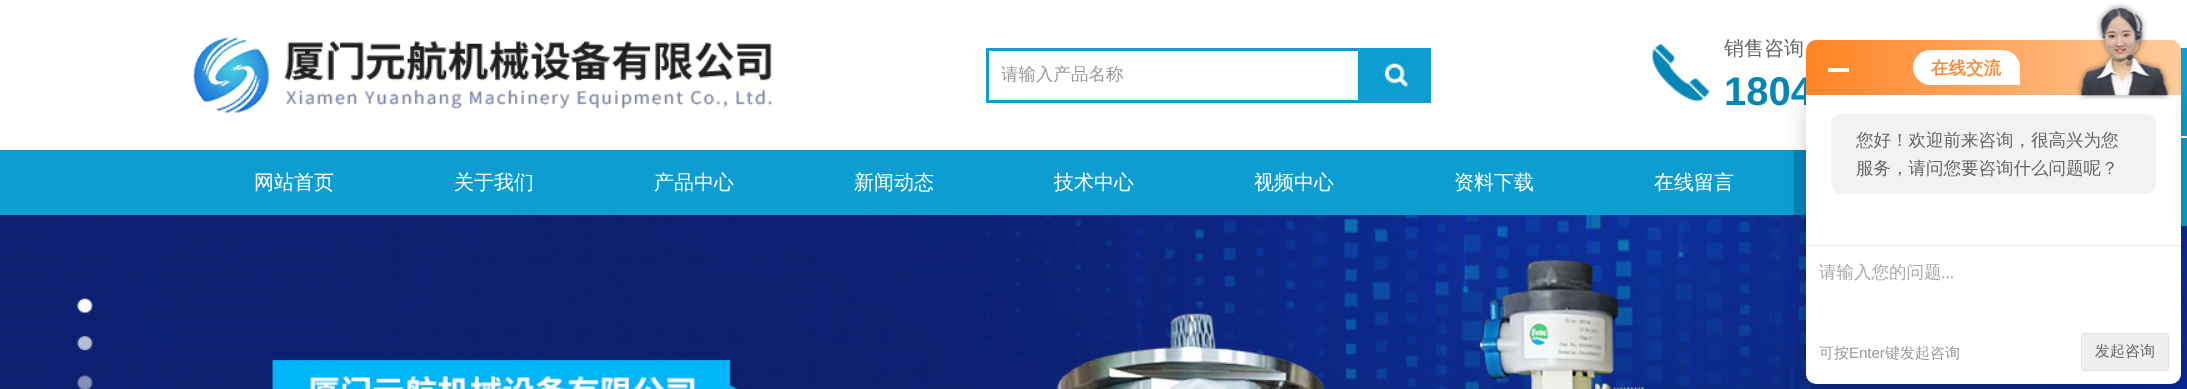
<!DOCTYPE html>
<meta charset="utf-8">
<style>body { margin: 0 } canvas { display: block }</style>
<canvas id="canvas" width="2187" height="389"></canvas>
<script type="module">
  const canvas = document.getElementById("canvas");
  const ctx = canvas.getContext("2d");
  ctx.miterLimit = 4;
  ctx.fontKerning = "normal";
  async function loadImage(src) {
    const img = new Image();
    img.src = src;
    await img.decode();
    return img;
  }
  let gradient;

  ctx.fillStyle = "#ffffff";
  ctx.fillRect(0, 0, 2187, 389);
  ctx.drawImage(await loadImage("img1.png"), 193, 37, 579, 76);
  ctx.strokeStyle = "#0d9dd1";
  ctx.lineWidth = 3;
  ctx.strokeRect(987.5, 49.5, 372, 52);
  ctx.font = "500 17.5px WenQuanYi Zen Hei";
  ctx.fillStyle = "#999999";
  ctx.fillText("请输入产品名称", 1001, 80);
  ctx.fillStyle = "#0d9dd1";
  ctx.fillRect(1361, 48, 70, 55);
  ctx.drawImage(await loadImage("img2.png"), 1378, 57, 30, 31);
  ctx.drawImage(await loadImage("img3.png"), 1652, 43, 58, 59);
  ctx.font = "500 20px WenQuanYi Zen Hei";
  ctx.fillStyle = "#666666";
  ctx.fillText("销售咨询", 1724, 55);
  ctx.font = "bold 40px Liberation Sans";
  ctx.fillStyle = "#0685b7";
  ctx.fillText("1804", 1724, 105);
  ctx.fillStyle = "#0d9dd1";
  ctx.fillRect(2180, 48, 7, 88);
  ctx.drawImage(await loadImage("img5.png"), 0, 215, 2187, 174);
  ctx.fillRect(2181, 138, 6, 88);
  ctx.fillRect(0, 150, 1794, 65);
  ctx.fillStyle = "#0685b7";
  ctx.fillRect(1794, 150, 12, 65);
  ctx.fillStyle = "rgba(0, 0, 0, 0.2)";
  ctx.filter = "blur(10px)";
  ctx.beginPath();
  ctx.roundRect(1806, 100, 375, 289, 10);
  ctx.fill();
  ctx.filter = "none";
  gradient = ctx.createLinearGradient(1806, 68, 2181, 67);
  gradient.addColorStop(0, "#ff8324");
  gradient.addColorStop(1, "#fecb9c");
  ctx.fillStyle = gradient;
  ctx.beginPath();
  ctx.roundRect(1806, 40, 375, 55, [10, 10, 0, 0]);
  ctx.fill();
  ctx.fillStyle = "#ffffff";
  ctx.fillRect(1828, 68, 21, 4);
  ctx.beginPath();
  ctx.roundRect(1913, 50, 107, 35, [17.5, 17.5, 0, 17.5]);
  ctx.fill();
  ctx.font = "bold 17.5px WenQuanYi Zen Hei";
  ctx.fillStyle = "#fb8b36";
  ctx.fillText("在线交流", 1931, 74);
  ctx.fillStyle = "#ffffff";
  ctx.beginPath();
  ctx.roundRect(1806, 95, 375, 289, [0, 0, 10, 10]);
  ctx.fill();
  ctx.drawImage(await loadImage("img4.png"), 2077, 3, 95, 97);
  ctx.fillStyle = "#f2f2f2";
  ctx.beginPath();
  ctx.roundRect(1831, 114, 325, 80, 10);
  ctx.fill();
  ctx.font = "500 17.5px WenQuanYi Zen Hei";
  ctx.fillStyle = "#666666";
  ctx.fillText("您好！欢迎前来咨询，很高兴为您", 1856, 146);
  ctx.fillText("服务，请问您要咨询什么问题呢？", 1856, 174);
  ctx.fillStyle = "#eaeaea";
  ctx.fillRect(1806, 245, 375, 1);
  ctx.fillStyle = "#aaaaaa";
  ctx.fillText("请输入您的问题", 1819, 278);
  ctx.font = "17.5px Liberation Serif";
  ctx.fillText("...", 1941, 278);
  ctx.font = "500 15px WenQuanYi Zen Hei";
  ctx.fillStyle = "#999999";
  ctx.fillText("可按", 1819, 358);
  ctx.font = "15px Liberation Sans";
  ctx.fillText("Enter", 1849, 358);
  ctx.font = "500 15px WenQuanYi Zen Hei";
  ctx.fillText("键发起咨询", 1885, 358);
  ctx.fillStyle = "#f0efed";
  ctx.beginPath();
  ctx.roundRect(2081.5, 333.5, 87, 37, 2);
  ctx.fill();
  ctx.strokeStyle = "#e2e2e2";
  ctx.lineWidth = 1;
  ctx.stroke();
  ctx.fillStyle = "#666666";
  ctx.fillText("发起咨询", 2095, 356);
  ctx.font = "500 20px WenQuanYi Zen Hei";
  ctx.fillStyle = "#ffffff";
  ctx.fillText("网站首页", 254, 189);
  ctx.fillText("关于我们", 454, 189);
  ctx.fillText("产品中心", 654, 189);
  ctx.fillText("新闻动态", 854, 189);
  ctx.fillText("技术中心", 1054, 189);
  ctx.fillText("视频中心", 1254, 189);
  ctx.fillText("资料下载", 1454, 189);
  ctx.fillText("在线留言", 1654, 189);
</script>
